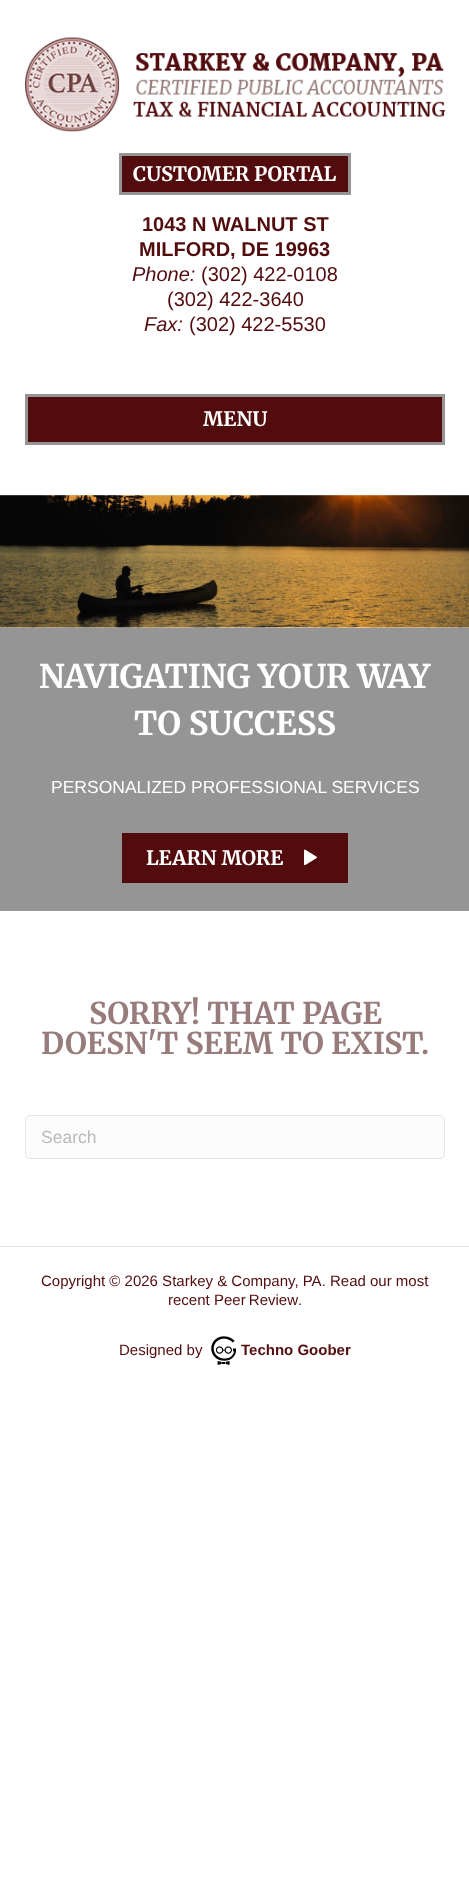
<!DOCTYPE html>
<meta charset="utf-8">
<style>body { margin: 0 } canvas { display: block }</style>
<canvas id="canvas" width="469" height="1886"></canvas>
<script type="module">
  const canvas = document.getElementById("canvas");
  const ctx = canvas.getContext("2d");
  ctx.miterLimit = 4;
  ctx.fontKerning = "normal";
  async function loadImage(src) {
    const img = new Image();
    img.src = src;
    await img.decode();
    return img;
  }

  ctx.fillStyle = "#ffffff";
  ctx.fillRect(0, 0, 469, 1886);
  ctx.drawImage(await loadImage("img1.png"), 25, 37, 420, 95);
  ctx.fillStyle = "#520c0e";
  ctx.beginPath();
  ctx.rect(120.5, 154.5, 229, 39);
  ctx.fill();
  ctx.strokeStyle = "#959595";
  ctx.lineWidth = 3;
  ctx.stroke();
  ctx.font = "bold 20px Merriweather";
  ctx.fillStyle = "#ffffff";
  ctx.fillText("CUSTOMER PORTAL", 133, 181);
  ctx.font = "bold 20px Liberation Sans";
  ctx.fillStyle = "#520c0e";
  ctx.fillText("1043 N WALNUT ST", 142, 231);
  ctx.fillText("MILFORD, DE 19963", 139, 256);
  ctx.font = "italic 20px Liberation Sans";
  ctx.fillText("Phone:", 132, 281);
  ctx.font = "20px Liberation Sans";
  ctx.fillText("(302) 422-0108", 201, 281);
  ctx.fillText("(302) 422-3640", 167, 306);
  ctx.font = "italic 20px Liberation Sans";
  ctx.fillText("Fax:", 144, 331);
  ctx.font = "20px Liberation Sans";
  ctx.fillText("(302) 422-5530", 189, 331);
  ctx.beginPath();
  ctx.rect(26.5, 395.5, 417, 48);
  ctx.fill();
  ctx.stroke();
  ctx.font = "bold 20px Merriweather";
  ctx.fillStyle = "#ffffff";
  ctx.fillText("MENU", 203, 426);
  ctx.drawImage(await loadImage("img2.png"), 0, 495, 469, 133);
  ctx.fillStyle = "#959595";
  ctx.fillRect(0, 628, 469, 283);
  ctx.font = "bold 32.5px Merriweather";
  ctx.fillStyle = "#ffffff";
  ctx.fillText("NAVIGATING YOUR WAY", 39, 688);
  ctx.fillText("TO SUCCESS", 134, 735);
  ctx.font = "17.5px Liberation Sans";
  ctx.fillText("PERSONALIZED PROFESSIONAL SERVICES", 51, 793);
  ctx.fillStyle = "#520c0e";
  ctx.fillRect(122, 833, 226, 50);
  ctx.font = "bold 20px Merriweather";
  ctx.fillStyle = "#ffffff";
  ctx.fillText("LEARN MORE", 146, 865);
  ctx.drawImage(await loadImage("img3.png"), 304, 849, 13, 17);
  ctx.font = "bold 30px Merriweather";
  ctx.fillStyle = "#987c7c";
  ctx.fillText("SORRY! THAT PAGE", 89, 1024);
  ctx.fillText("DOESN'T SEEM TO EXIST.", 41, 1054);
  ctx.fillStyle = "#fcfcfc";
  ctx.beginPath();
  ctx.roundRect(25.5, 1115.5, 419, 43, 4.5);
  ctx.fill();
  ctx.strokeStyle = "#e6e6e6";
  ctx.lineWidth = 1;
  ctx.stroke();
  ctx.font = "17.5px Liberation Sans";
  ctx.fillStyle = "#b9b9b9";
  ctx.fillText("Search", 41, 1143);
  ctx.fillStyle = "#e6e6e6";
  ctx.fillRect(0, 1246, 469, 1);
  ctx.font = "15px Liberation Sans";
  ctx.fillStyle = "#520c0e";
  ctx.fillText("Copyright © 2026 Starkey & Company, PA. Read our most", 41, 1286);
  ctx.fillText("recent", 168, 1305);
  ctx.wordSpacing = "-1px";
  ctx.fillText("Peer Review", 214, 1305);
  ctx.wordSpacing = "0px";
  ctx.fillText(".", 298, 1305);
  ctx.fillText("Designed by", 119, 1355);
  ctx.drawImage(await loadImage("img4.png"), 211, 1336, 25, 29);
  ctx.font = "bold 15px Liberation Sans";
  ctx.fillText("Techno Goober", 241, 1355);
</script>
